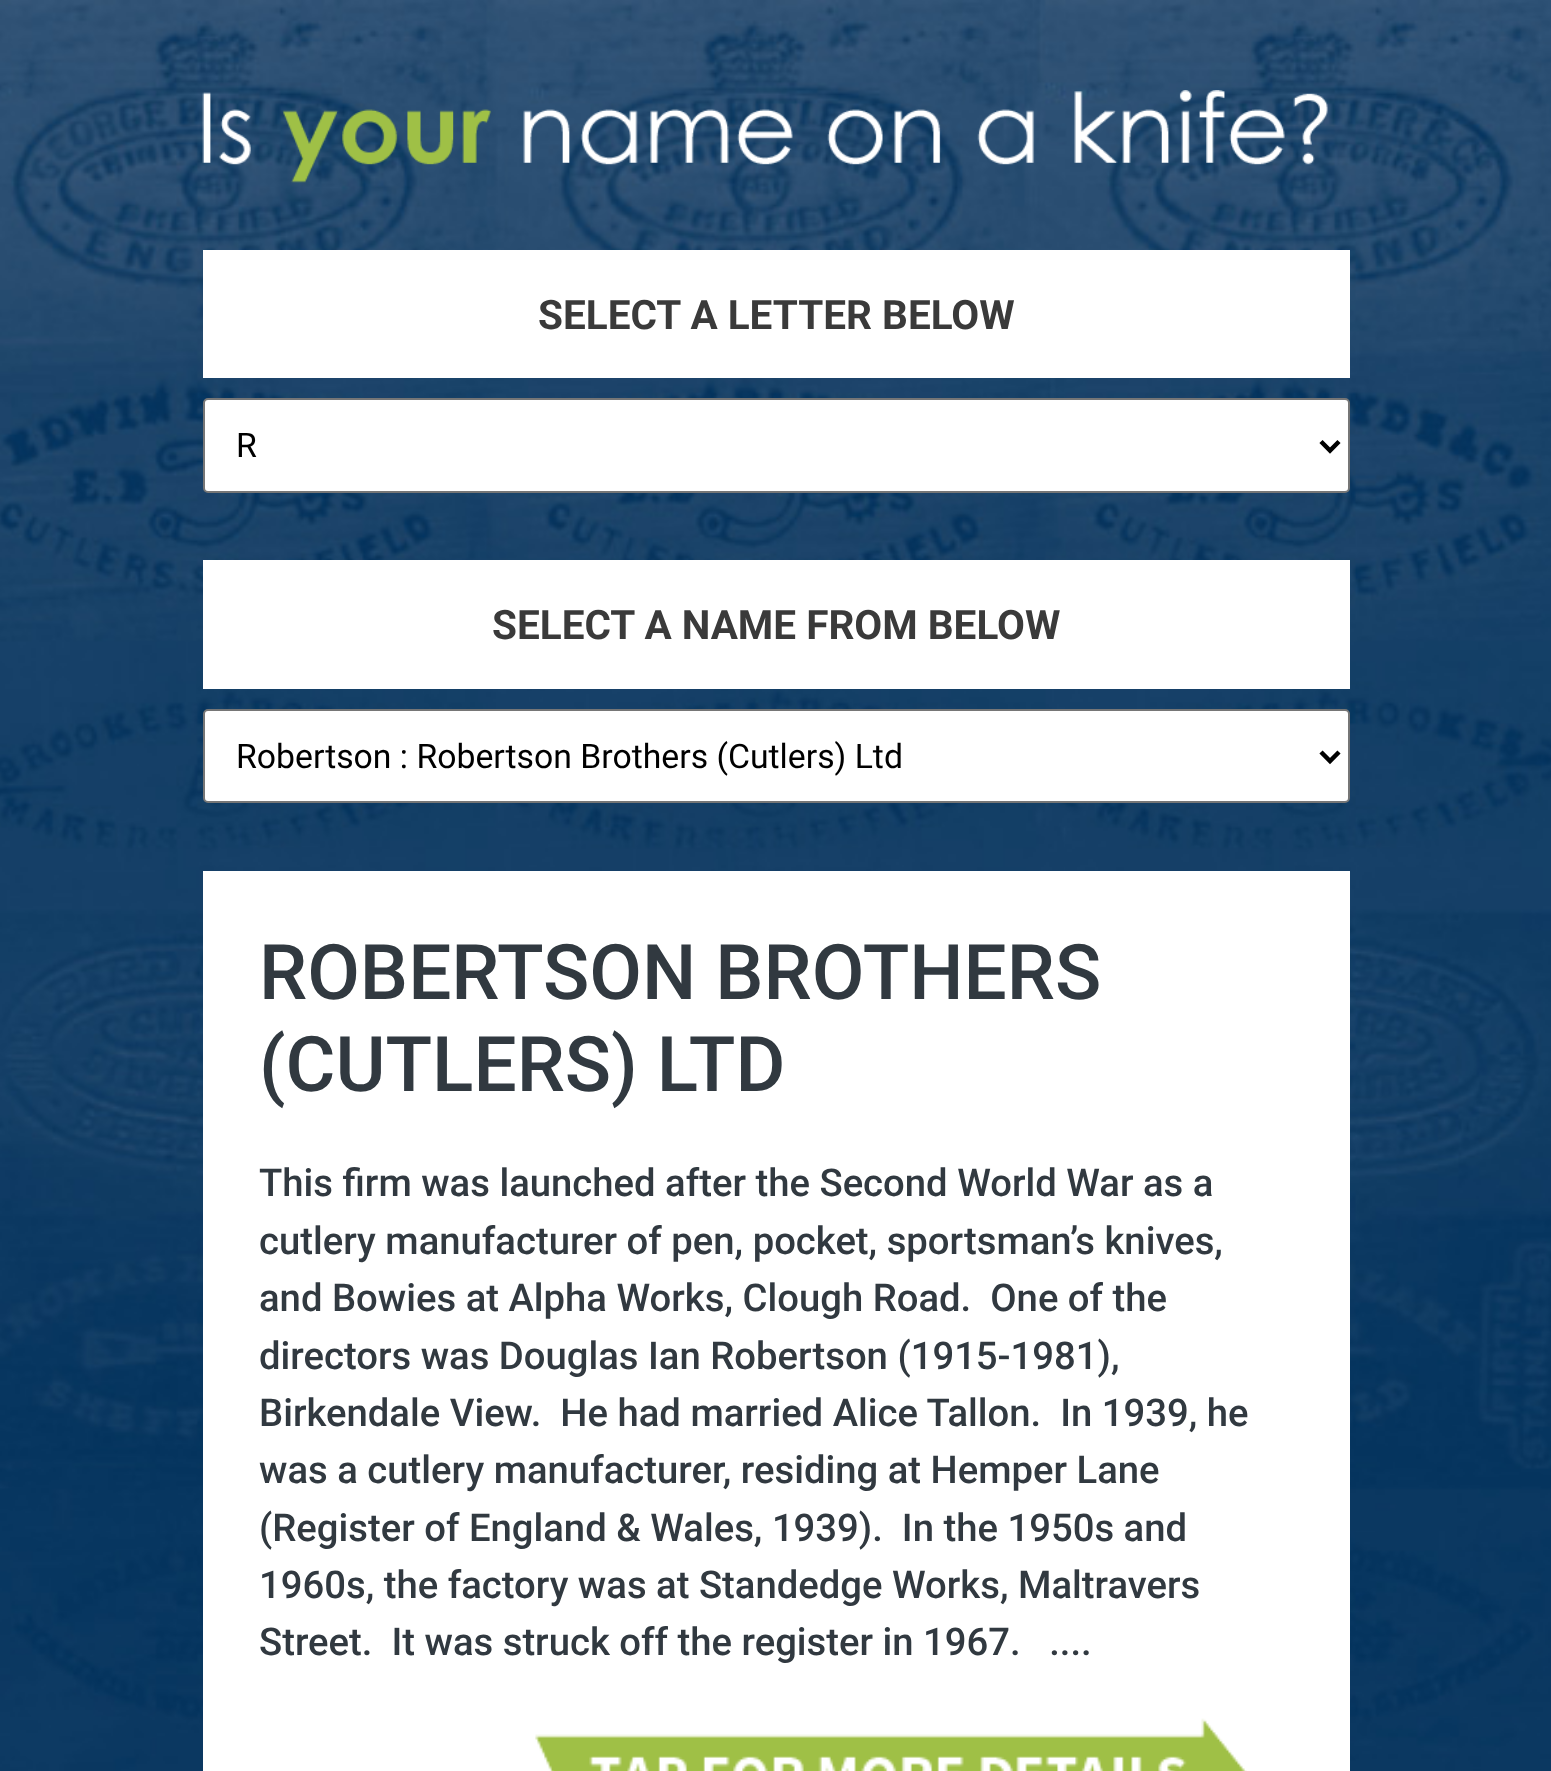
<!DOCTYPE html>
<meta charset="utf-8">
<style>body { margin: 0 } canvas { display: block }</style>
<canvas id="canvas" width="1551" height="1771"></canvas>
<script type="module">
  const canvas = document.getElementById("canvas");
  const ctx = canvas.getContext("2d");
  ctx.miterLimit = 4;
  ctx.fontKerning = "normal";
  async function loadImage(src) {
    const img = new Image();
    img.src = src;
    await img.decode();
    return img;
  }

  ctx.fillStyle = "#ffffff";
  ctx.fillRect(0, 0, 1551, 1771);
  ctx.drawImage(await loadImage("img1.png"), 0, 0, 1551, 1771);
  ctx.drawImage(await loadImage("img2.png"), 202, 90, 1126, 93);
  ctx.fillRect(203, 250, 1147, 128);
  ctx.font = "bold 40.5px Roboto";
  ctx.fillStyle = "#3a3a3a";
  ctx.fillText("SELECT A LETTER BELOW", 538, 329);
  ctx.fillStyle = "#ffffff";
  ctx.beginPath();
  ctx.roundRect(204, 399, 1145, 93, 4);
  ctx.fill();
  ctx.strokeStyle = "#767676";
  ctx.lineWidth = 2;
  ctx.stroke();
  ctx.beginPath();
  ctx.moveTo(1321, 441.5);
  ctx.lineTo(1330, 450.5);
  ctx.lineTo(1339, 441.5);
  ctx.strokeStyle = "#000000";
  ctx.lineWidth = 4.5;
  ctx.stroke();
  ctx.font = "33.75px Roboto";
  ctx.fillStyle = "#000000";
  ctx.fillText("R", 236, 457);
  ctx.fillStyle = "#ffffff";
  ctx.fillRect(203, 560, 1147, 129);
  ctx.font = "bold 40.5px Roboto";
  ctx.fillStyle = "#3a3a3a";
  ctx.fillText("SELECT A NAME FROM BELOW", 492, 639);
  ctx.fillStyle = "#ffffff";
  ctx.beginPath();
  ctx.roundRect(204, 710, 1145, 92, 4);
  ctx.fill();
  ctx.strokeStyle = "#767676";
  ctx.lineWidth = 2;
  ctx.stroke();
  ctx.beginPath();
  ctx.moveTo(1321, 752);
  ctx.lineTo(1330, 761);
  ctx.lineTo(1339, 752);
  ctx.strokeStyle = "#000000";
  ctx.lineWidth = 4.5;
  ctx.stroke();
  ctx.font = "33.75px Roboto";
  ctx.fillStyle = "#000000";
  ctx.fillText("Robertson : Robertson Brothers (Cutlers) Ltd", 236, 768);
  ctx.fillStyle = "#ffffff";
  ctx.fillRect(203, 871, 1147, 900);
  ctx.font = "500 76.5px Roboto";
  ctx.fillStyle = "#313940";
  ctx.fillText("ROBERTSON BROTHERS", 259, 999);
  ctx.fillText("(CUTLERS) LTD", 259, 1091);
  ctx.font = "500 38.25px Roboto";
  ctx.fillText("This firm was launched after the Second World War as a", 259, 1196);
  ctx.fillText("cutlery manufacturer of pen, pocket, sportsman’s knives,", 259, 1254);
  ctx.fillText("and Bowies at Alpha Works, Clough Road.  One of the", 259, 1311);
  ctx.fillText("directors was Douglas Ian Robertson (1915-1981),", 259, 1369);
  ctx.fillText("Birkendale View.  He had married Alice Tallon.  In 1939, he", 259, 1426);
  ctx.fillText("was a cutlery manufacturer, residing at Hemper Lane", 259, 1483);
  ctx.fillText("(Register of England & Wales, 1939).  In the 1950s and", 259, 1541);
  ctx.fillText("1960s, the factory was at Standedge Works, Maltravers", 259, 1598);
  ctx.fillText("Street.  It was struck off the register in 1967.   ....", 259, 1655);
  ctx.drawImage(await loadImage("img3.png"), 535, 1718, 712, 53);
</script>
